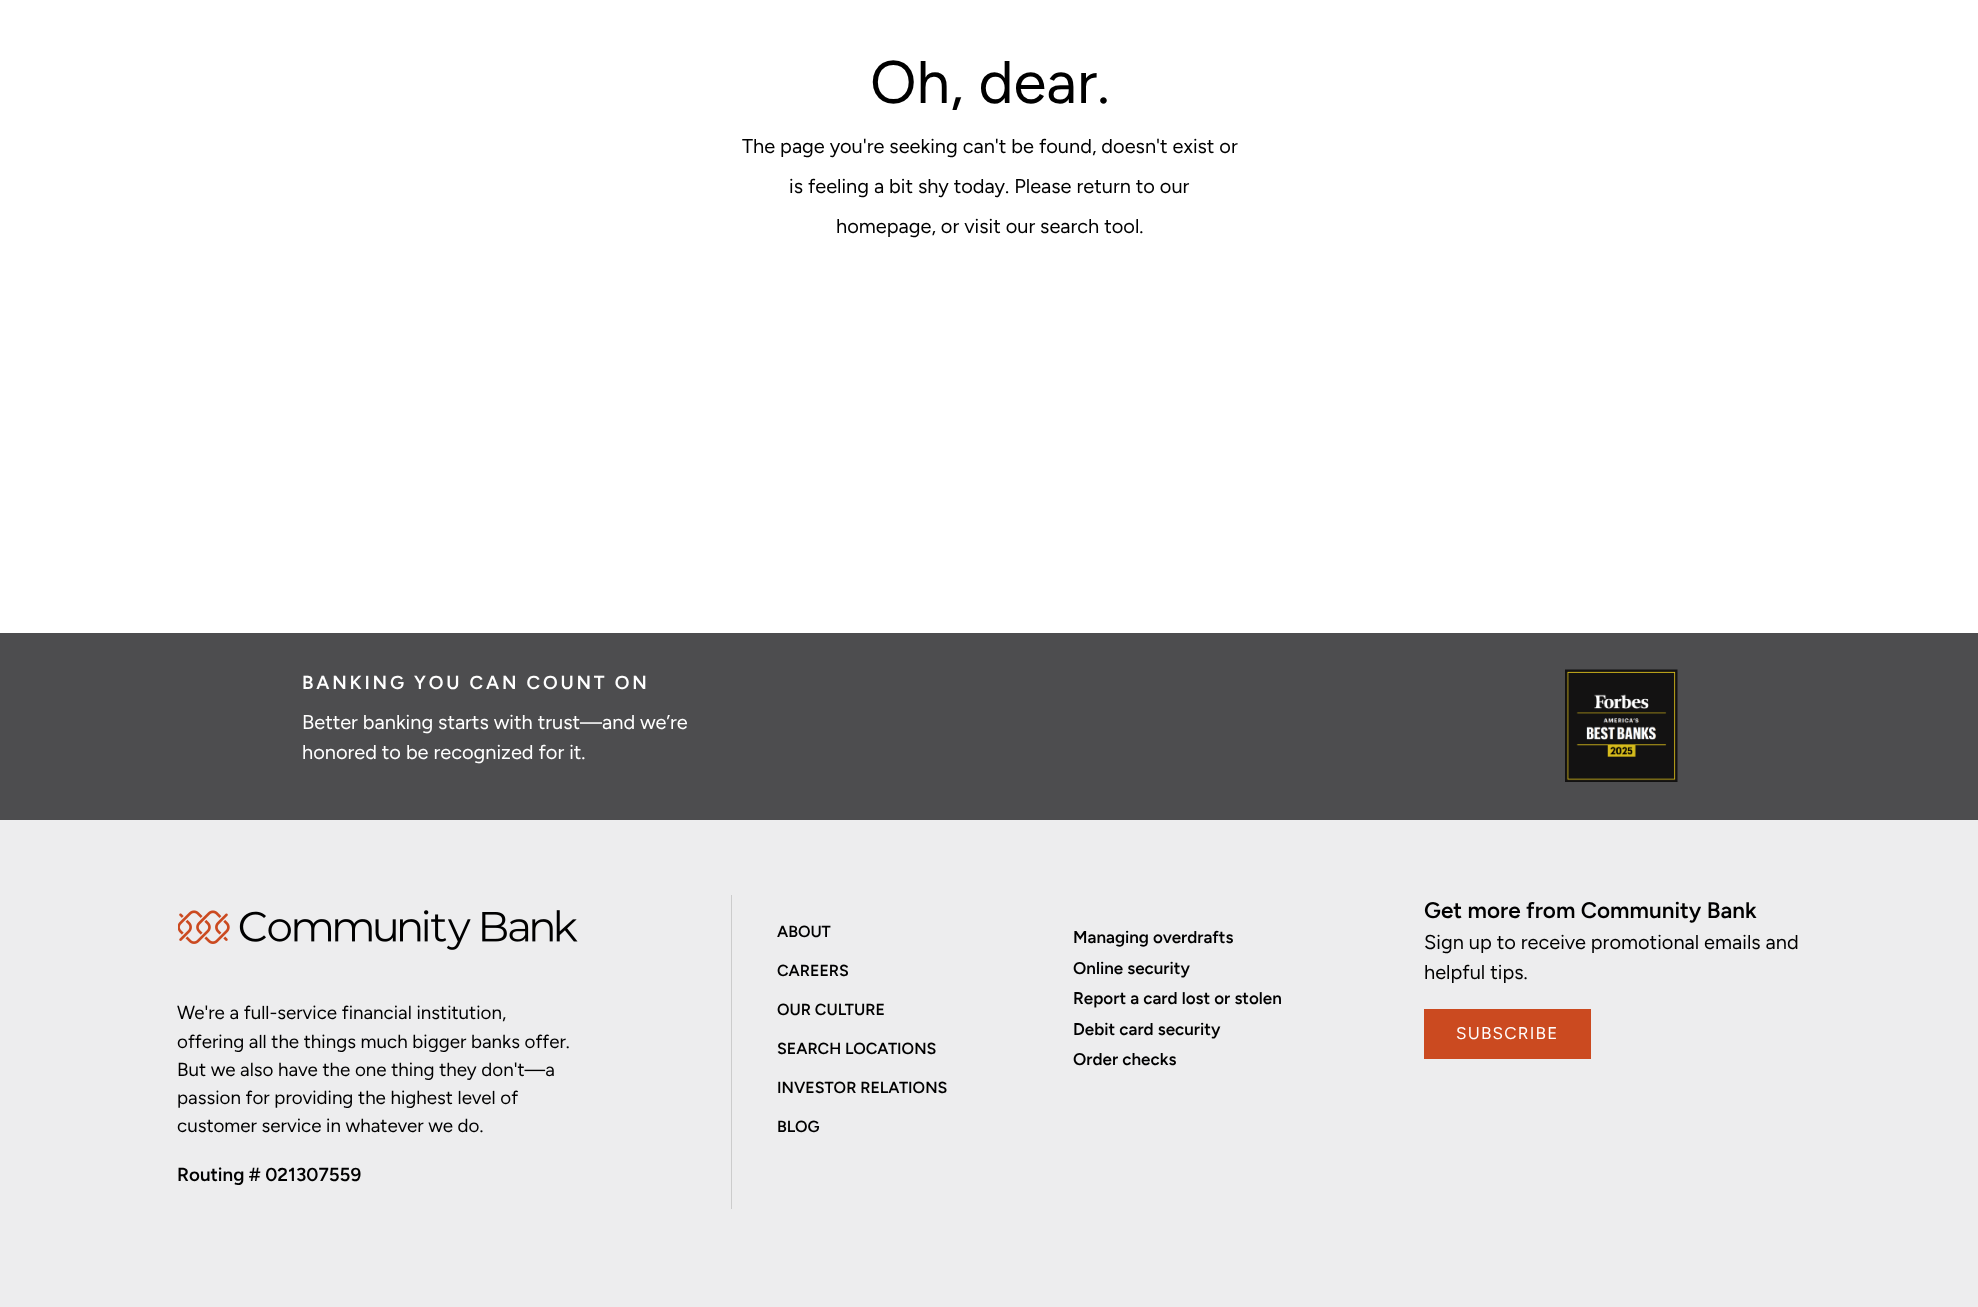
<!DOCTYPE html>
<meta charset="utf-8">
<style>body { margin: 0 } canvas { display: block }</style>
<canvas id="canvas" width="1978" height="1307"></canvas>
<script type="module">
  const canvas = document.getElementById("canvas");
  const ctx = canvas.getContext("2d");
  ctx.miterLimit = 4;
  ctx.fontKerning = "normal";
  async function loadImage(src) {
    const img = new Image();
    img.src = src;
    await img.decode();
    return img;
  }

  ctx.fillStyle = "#ffffff";
  ctx.fillRect(0, 0, 1978, 1307);
  ctx.font = "60px Figtree";
  ctx.fillStyle = "#000000";
  ctx.fillText("Oh, dear.", 870, 103);
  ctx.font = "20px Figtree";
  ctx.fillText("The page you're seeking can't be found, doesn't exist or", 742, 153);
  ctx.fillText("is feeling a bit shy today. Please return to our", 789, 193);
  ctx.fillText("homepage, or visit our search tool.", 836, 233);
  ctx.fillStyle = "#4d4d4f";
  ctx.fillRect(0, 633, 1978, 187);
  ctx.letterSpacing = "2.8px";
  ctx.font = "600 18.8px Figtree";
  ctx.fillStyle = "#ffffff";
  ctx.fillText("BANKING YOU CAN COUNT ON", 302, 689);
  ctx.letterSpacing = "0px";
  ctx.font = "20px Figtree";
  ctx.fillText("Better banking starts with trust—and we’re", 302, 729);
  ctx.fillText("honored to be recognized for it.", 302, 759);
  ctx.drawImage(await loadImage("img1.png"), 1565, 669, 113, 113);
  ctx.fillStyle = "#ededee";
  ctx.fillRect(0, 820, 1978, 487);
  ctx.drawImage(await loadImage("img2.png"), 178, 910, 400, 40);
  ctx.font = "18.8px Figtree";
  ctx.fillStyle = "#000000";
  ctx.fillText("We're a full-service financial institution,", 177, 1019);
  ctx.fillText("offering all the things much bigger banks offer.", 177, 1048);
  ctx.fillText("But we also have the one thing they don't—a", 177, 1076);
  ctx.fillText("passion for providing the highest level of", 177, 1104);
  ctx.fillText("customer service in whatever we do.", 177, 1132);
  ctx.font = "600 18.8px Figtree";
  ctx.fillText("Routing # 021307559", 177, 1181);
  ctx.fillStyle = "#cccccc";
  ctx.fillRect(731, 895, 1, 314);
  ctx.font = "600 16px Figtree";
  ctx.fillStyle = "#000000";
  ctx.fillText("ABOUT", 777, 937);
  ctx.fillText("CAREERS", 777, 976);
  ctx.fillText("OUR CULTURE", 777, 1015);
  ctx.fillText("SEARCH LOCATIONS", 777, 1054);
  ctx.fillText("INVESTOR RELATIONS", 777, 1093);
  ctx.fillText("BLOG", 777, 1132);
  ctx.font = "600 17px Figtree";
  ctx.fillText("Managing overdrafts", 1073, 943);
  ctx.fillText("Online security", 1073, 974);
  ctx.fillText("Report a card lost or stolen", 1073, 1004);
  ctx.fillText("Debit card security", 1073, 1035);
  ctx.fillText("Order checks", 1073, 1065);
  ctx.font = "600 22.5px Figtree";
  ctx.fillText("Get more from Community Bank", 1424, 918);
  ctx.font = "20px Figtree";
  ctx.fillText("Sign up to receive promotional emails and", 1424, 949);
  ctx.fillText("helpful tips.", 1424, 979);
  ctx.fillStyle = "#cb4a20";
  ctx.fillRect(1424, 1009, 167, 50);
  ctx.letterSpacing = "1.25px";
  ctx.font = "17px Figtree";
  ctx.fillStyle = "#ffffff";
  ctx.fillText("SUBSCRIBE", 1456, 1039);
</script>
